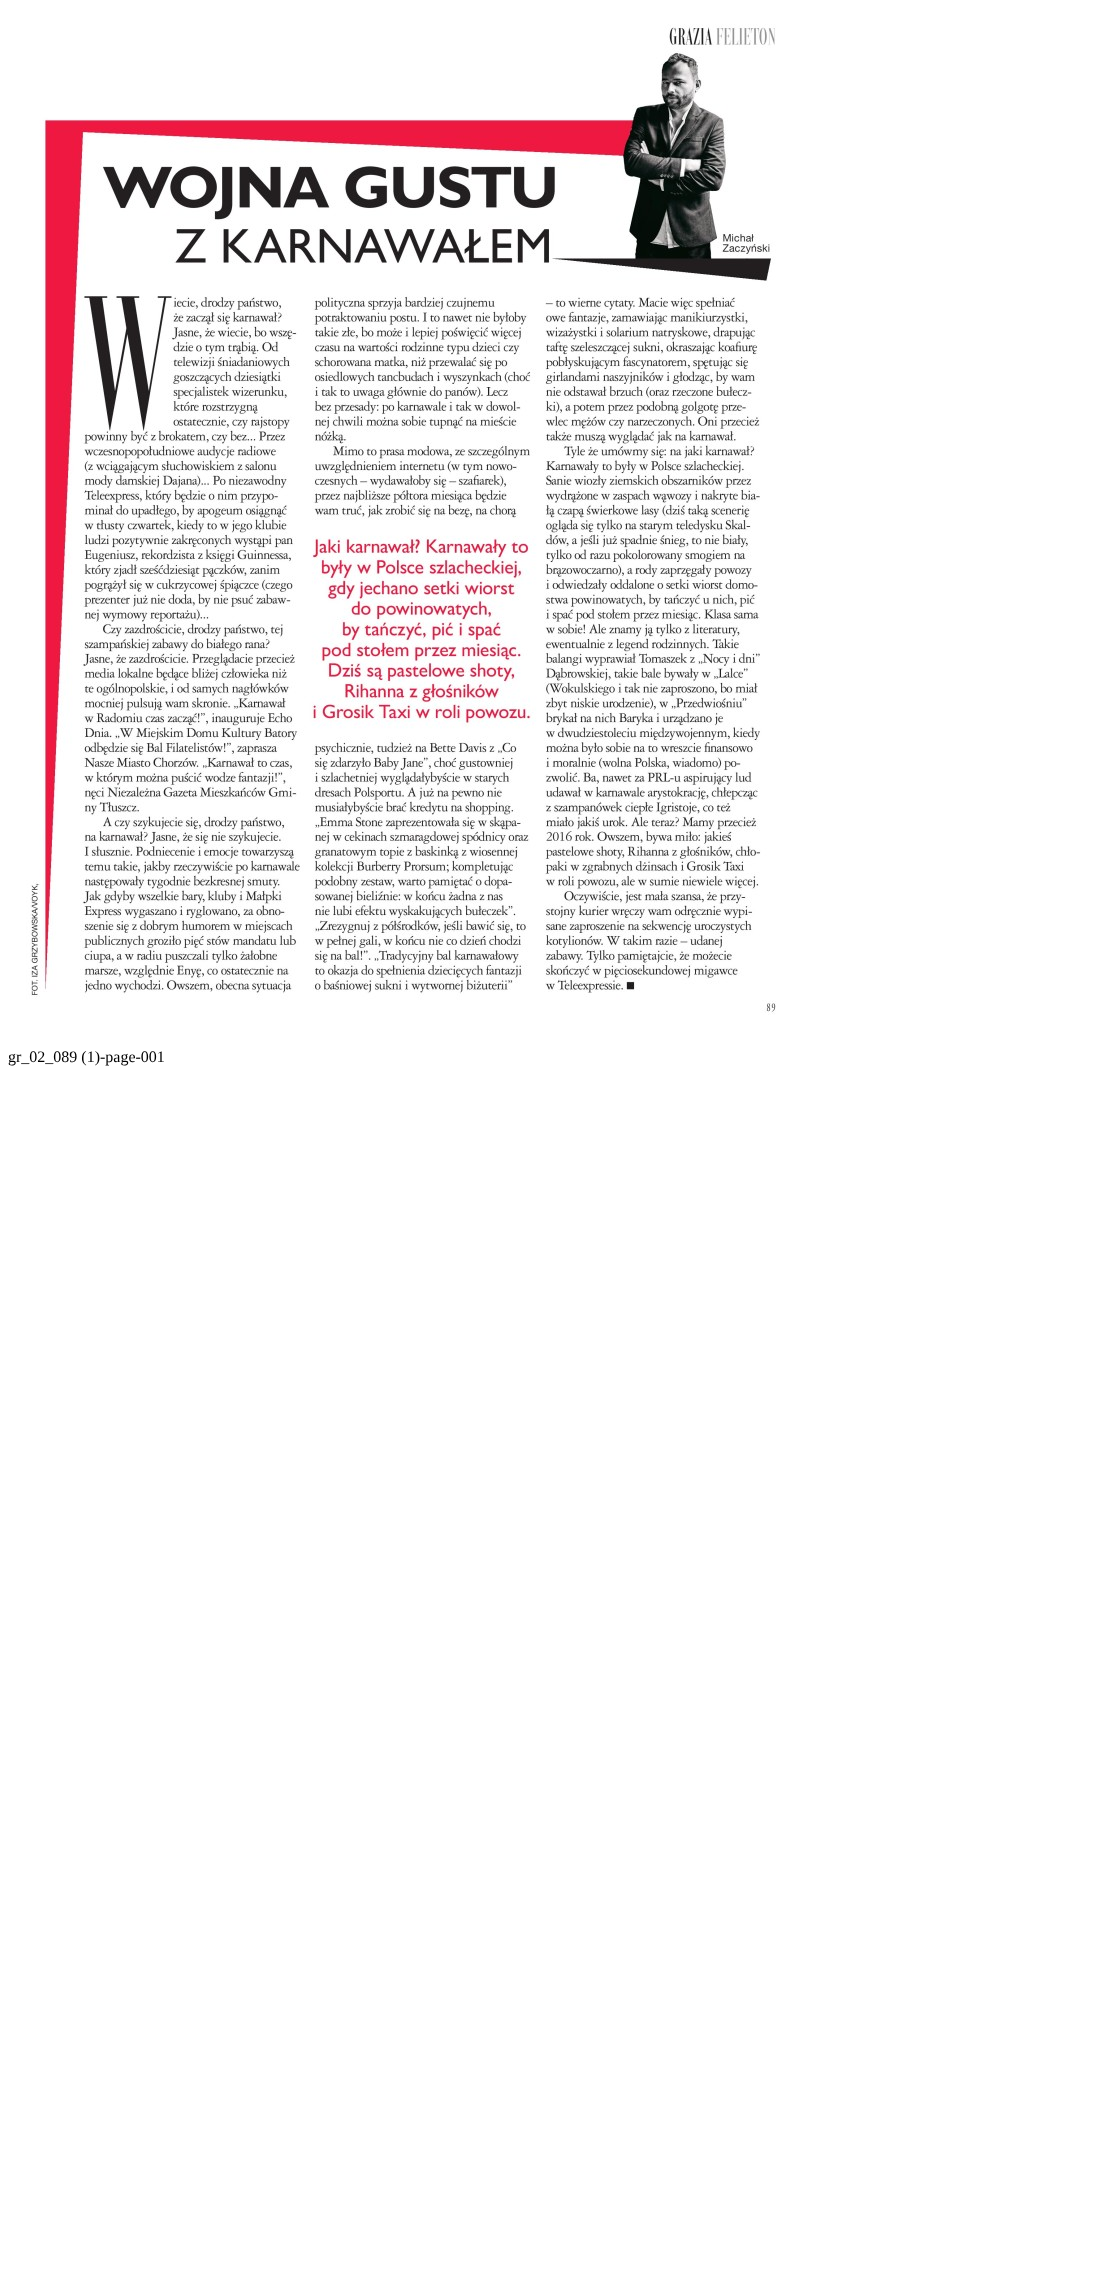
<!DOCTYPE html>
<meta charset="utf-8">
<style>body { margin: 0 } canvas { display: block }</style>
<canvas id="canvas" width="1112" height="2271"></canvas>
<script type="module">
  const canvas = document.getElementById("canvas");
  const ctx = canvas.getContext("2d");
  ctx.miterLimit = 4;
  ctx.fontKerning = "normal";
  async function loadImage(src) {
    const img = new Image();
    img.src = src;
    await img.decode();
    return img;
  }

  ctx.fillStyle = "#ffffff";
  ctx.fillRect(0, 0, 1112, 2271);
  ctx.drawImage(await loadImage("img1.png"), 26, 24, 750, 991);
  ctx.font = "16px Liberation Serif";
  ctx.fillStyle = "#000000";
  ctx.fillText("gr_02_089 (1)-page-001", 8, 1062);
</script>
